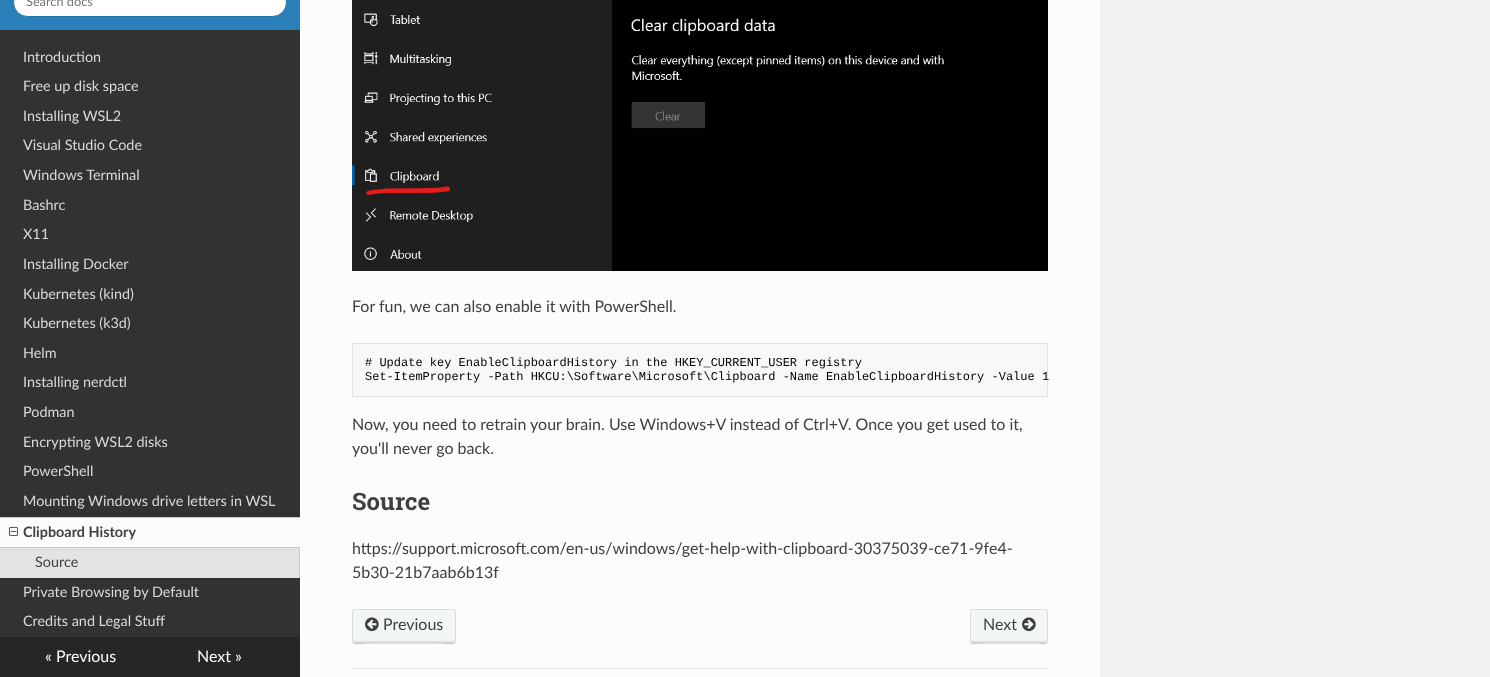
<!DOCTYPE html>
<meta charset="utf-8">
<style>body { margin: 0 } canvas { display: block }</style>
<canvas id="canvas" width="1490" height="677"></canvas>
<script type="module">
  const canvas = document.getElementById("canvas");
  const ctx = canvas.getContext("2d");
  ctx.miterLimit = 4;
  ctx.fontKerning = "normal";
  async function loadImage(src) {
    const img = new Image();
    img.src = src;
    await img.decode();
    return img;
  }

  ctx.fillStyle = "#f2f2f2";
  ctx.fillRect(0, 0, 1490, 677);
  ctx.fillStyle = "#343131";
  ctx.fillRect(0, 30, 300, 607);
  ctx.fillStyle = "#2980b9";
  ctx.fillRect(0, 0, 300, 30);
  ctx.fillStyle = "#ffffff";
  ctx.beginPath();
  ctx.roundRect(13.5, -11.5, 273, 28, 14);
  ctx.fill();
  ctx.strokeStyle = "#2472a4";
  ctx.stroke();
  ctx.font = "12.75px Lato";
  ctx.fillStyle = "#757575";
  ctx.fillText("Search docs", 26, 6);
  ctx.font = "14.4px Lato";
  ctx.fillStyle = "#d9d9d9";
  ctx.fillText("Introduction", 23, 62);
  ctx.fillText("Free up disk space", 23, 91);
  ctx.fillText("Installing WSL2", 23, 121);
  ctx.fillText("Visual Studio Code", 23, 150);
  ctx.fillText("Windows Terminal", 23, 180);
  ctx.fillText("Bashrc", 23, 210);
  ctx.fillText("X11", 23, 239);
  ctx.fillText("Installing Docker", 23, 269);
  ctx.fillText("Kubernetes (kind)", 23, 299);
  ctx.fillText("Kubernetes (k3d)", 23, 328);
  ctx.fillText("Helm", 23, 358);
  ctx.fillText("Installing nerdctl", 23, 387);
  ctx.fillText("Podman", 23, 417);
  ctx.fillText("Encrypting WSL2 disks", 23, 447);
  ctx.fillText("PowerShell", 23, 476);
  ctx.fillText("Mounting Windows drive letters in WSL", 23, 506);
  ctx.fillStyle = "#e3e3e3";
  ctx.fillRect(0, 548, 299, 30);
  ctx.fillStyle = "#fcfcfc";
  ctx.fillRect(0, 518, 300, 29);
  ctx.fillStyle = "#c9c9c9";
  ctx.fillRect(0, 517, 300, 1);
  ctx.fillRect(0, 547, 300, 1);
  ctx.drawImage(await loadImage("img1.png"), 9, 526, 10, 10);
  ctx.font = "bold 14.4px Lato";
  ctx.fillStyle = "#404040";
  ctx.fillText("Clipboard History", 23, 537);
  ctx.fillStyle = "#c9c9c9";
  ctx.fillRect(299, 548, 1, 30);
  ctx.font = "14.4px Lato";
  ctx.fillStyle = "#404040";
  ctx.fillText("Source", 35, 567);
  ctx.fillStyle = "#d9d9d9";
  ctx.fillText("Private Browsing by Default", 23, 597);
  ctx.fillText("Credits and Legal Stuff", 23, 626);
  ctx.fillStyle = "#fcfcfc";
  ctx.fillRect(300, 0, 800, 677);
  ctx.drawImage(await loadImage("img2.png"), 352, 0, 696, 271);
  ctx.font = "16px Lato";
  ctx.fillStyle = "#404040";
  ctx.fillText("For fun, we can also enable it with PowerShell.", 352, 312);
  ctx.fillStyle = "#f8f8f8";
  ctx.beginPath();
  ctx.rect(352.5, 343.5, 695, 53);
  ctx.fill();
  ctx.strokeStyle = "#e1e4e5";
  ctx.stroke();
  ctx.font = "12px Liberation Mono";
  ctx.fillStyle = "#000000";
  ctx.fillText("# Update key EnableClipboardHistory in the HKEY_CURRENT_USER registry", 365, 366);
  ctx.fillText("Set-ItemProperty -Path HKCU:\\Software\\Microsoft\\Clipboard -Name EnableClipboardHistory -Value 1", 365, 380);
  ctx.font = "16px Lato";
  ctx.fillStyle = "#404040";
  ctx.fillText("Now, you need to retrain your brain. Use Windows+V instead of Ctrl+V. Once you get used to it,", 352, 430);
  ctx.fillText("you'll never go back.", 352, 454);
  ctx.font = "bold 24px Roboto Slab";
  ctx.fillText("Source", 352, 510);
  ctx.font = "16px Lato";
  ctx.fillText("https://support.microsoft.com/en-us/windows/get-help-with-clipboard-30375039-ce71-9fe4-", 352, 554);
  ctx.fillText("5b30-21b7aab6b13f", 352, 578);
  ctx.fillStyle = "#f3f6f6";
  ctx.beginPath();
  ctx.roundRect(352, 609, 104, 35, 2);
  ctx.fill();
  ctx.fillStyle = "#dbdddd";
  ctx.beginPath();
  ctx.moveTo(353, 640);
  ctx.bezierCurveTo(353, 648, 361, 643, 371, 643);
  ctx.lineTo(437, 643);
  ctx.bezierCurveTo(447, 643, 455, 648, 455, 640);
  ctx.bezierCurveTo(455, 641, 455, 641, 454, 641);
  ctx.lineTo(354, 641);
  ctx.bezierCurveTo(353, 641, 353, 641, 353, 640);
  ctx.closePath();
  ctx.fill();
  ctx.beginPath();
  ctx.roundRect(352.5, 609.5, 103, 34, 1.5);
  ctx.strokeStyle = "rgba(0, 0, 0, 0.1)";
  ctx.stroke();
  ctx.drawImage(await loadImage("img3.png"), 365, 617, 14, 15);
  ctx.fillStyle = "#404040";
  ctx.fillText("Previous", 383, 630);
  ctx.fillStyle = "#f3f6f6";
  ctx.beginPath();
  ctx.roundRect(970, 609, 78, 35, 2);
  ctx.fill();
  ctx.fillStyle = "#dbdddd";
  ctx.beginPath();
  ctx.moveTo(971, 640);
  ctx.bezierCurveTo(971, 647, 976, 643, 984, 643);
  ctx.lineTo(1034, 643);
  ctx.bezierCurveTo(1042, 643, 1047, 647, 1047, 640);
  ctx.bezierCurveTo(1047, 641, 1047, 641, 1046, 641);
  ctx.lineTo(971, 641);
  ctx.closePath();
  ctx.fill();
  ctx.beginPath();
  ctx.roundRect(970.5, 609.5, 77, 34, 1.5);
  ctx.stroke();
  ctx.fillStyle = "#404040";
  ctx.fillText("Next", 983, 630);
  ctx.drawImage(await loadImage("img4.png"), 1022, 617, 14, 15);
  ctx.fillStyle = "#e1e4e5";
  ctx.fillRect(352, 668, 696, 1);
  ctx.fillStyle = "#272525";
  ctx.fillRect(0, 637, 300, 40);
  ctx.fillStyle = "#fcfcfc";
  ctx.fillText("« Previous", 45, 662);
  ctx.fillText("Next »", 197, 662);
</script>
